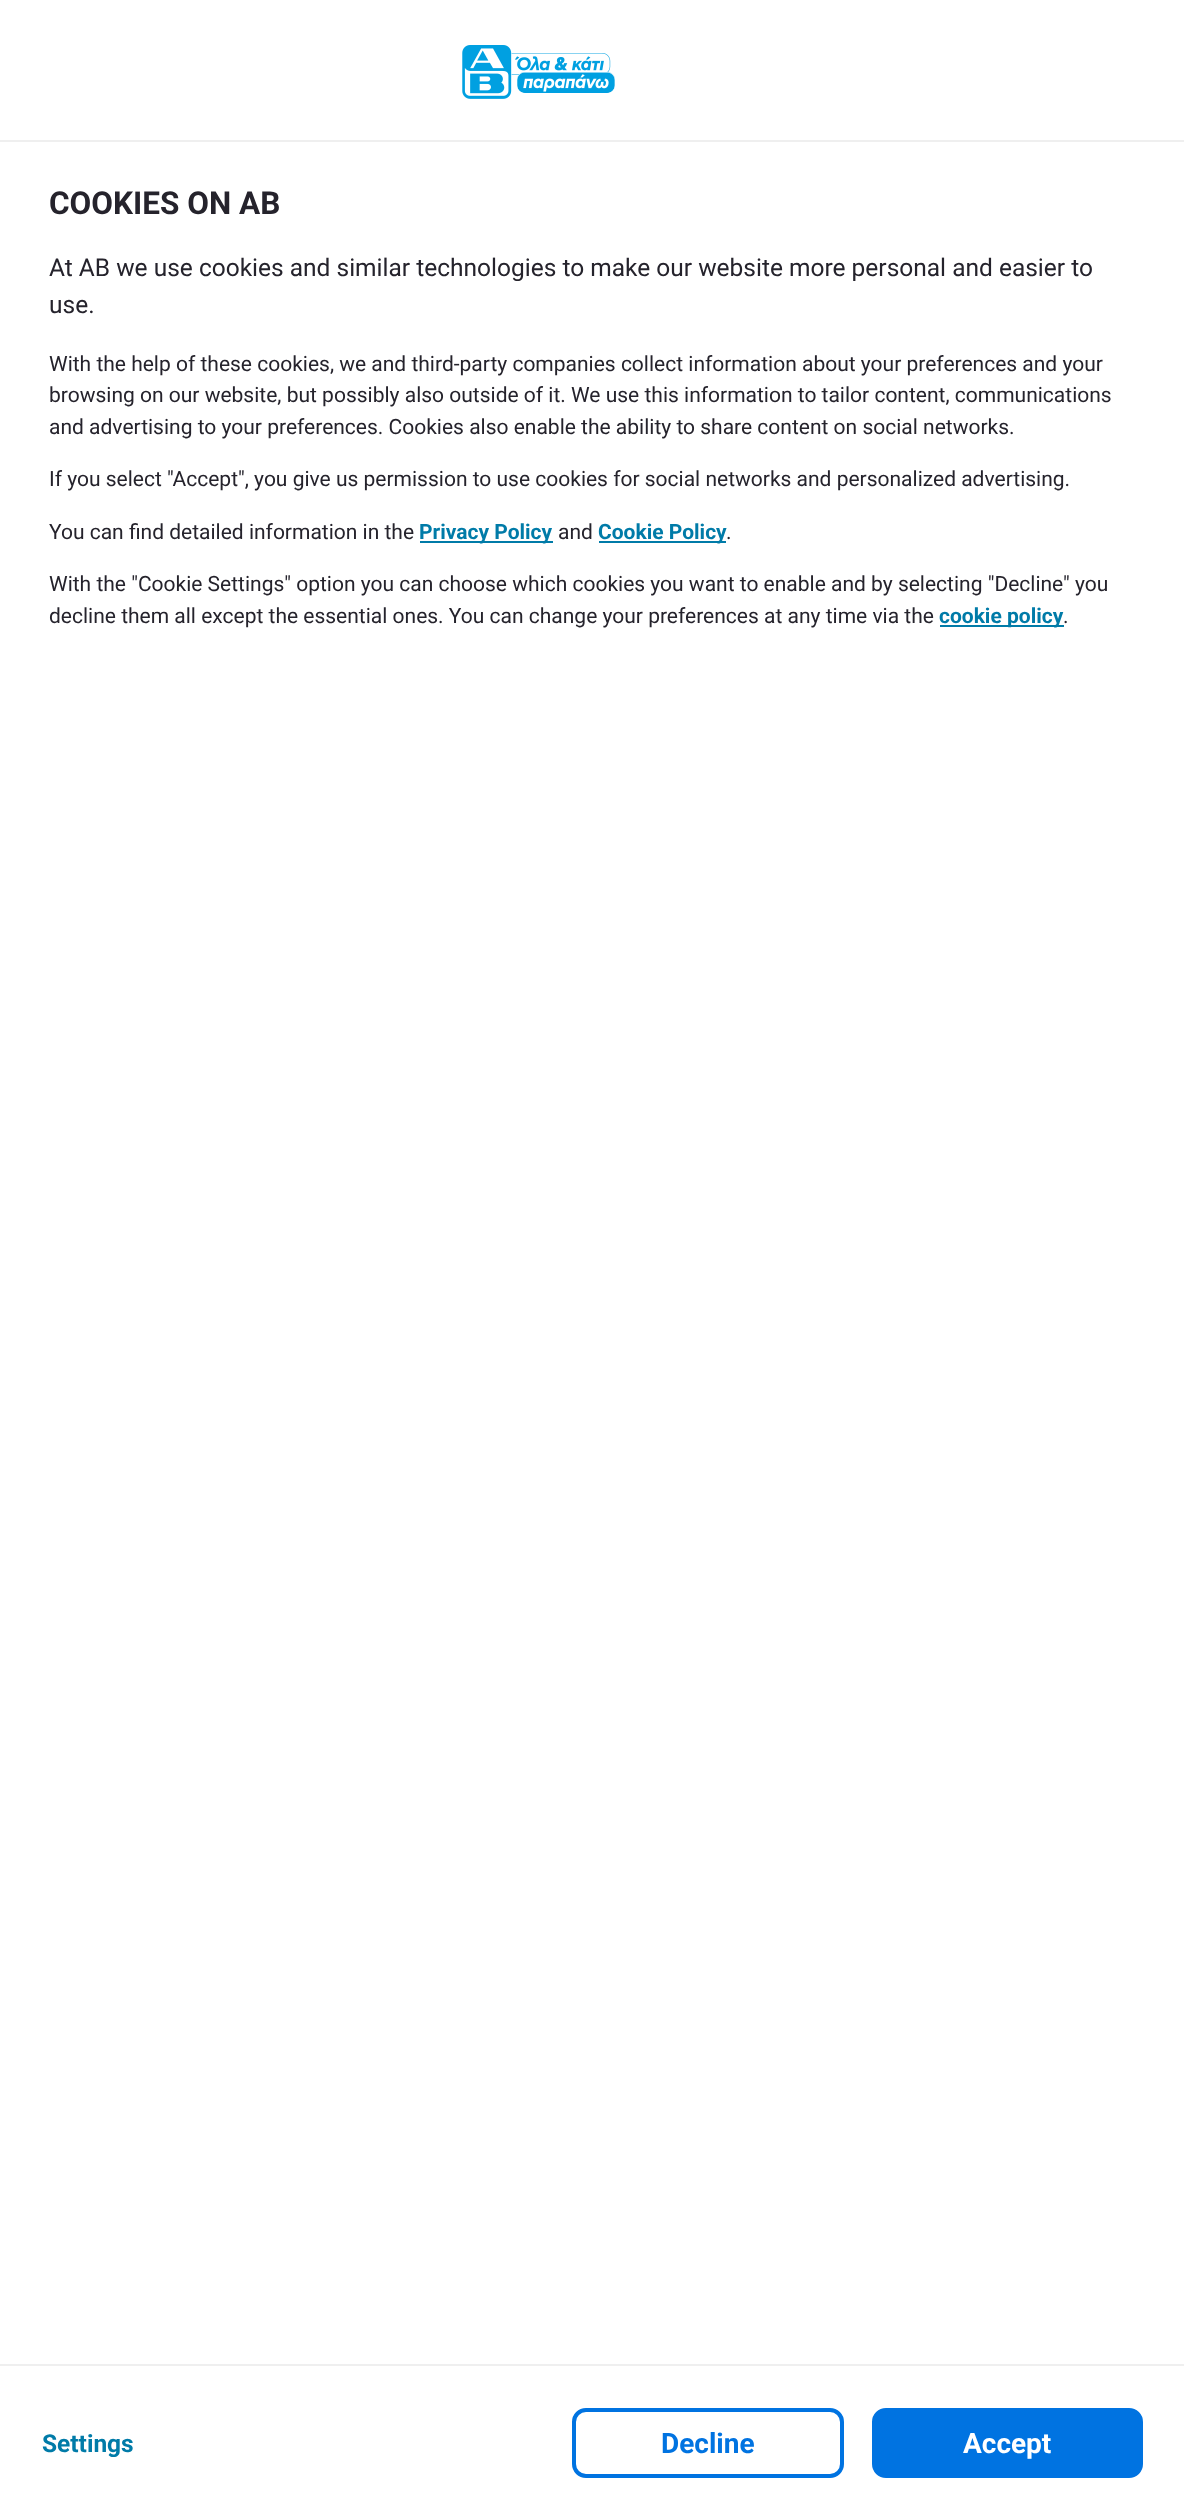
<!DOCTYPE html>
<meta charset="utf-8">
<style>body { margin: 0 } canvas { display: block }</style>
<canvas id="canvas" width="1184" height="2520"></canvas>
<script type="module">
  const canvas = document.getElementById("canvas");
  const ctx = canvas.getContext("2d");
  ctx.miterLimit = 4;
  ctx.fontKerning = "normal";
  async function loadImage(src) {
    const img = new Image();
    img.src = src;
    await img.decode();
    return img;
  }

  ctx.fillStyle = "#ffffff";
  ctx.fillRect(0, 0, 1184, 2520);
  ctx.fillStyle = "#efefef";
  ctx.fillRect(0, 140, 1184, 2);
  ctx.drawImage(await loadImage("img1.png"), 462, 45, 153, 54);
  ctx.font = "bold 31.5px Roboto";
  ctx.fillStyle = "#25232c";
  ctx.fillText("COOKIES ON AB", 49, 214);
  ctx.font = "24.5px Roboto";
  ctx.fillText("At AB we use cookies and similar technologies to make our website more personal and easier to", 49, 276);
  ctx.fillText("use.", 49, 313);
  ctx.font = "21px Roboto";
  ctx.fillText("With the help of these cookies, we and third-party companies collect information about your preferences and your", 49, 371);
  ctx.fillText("browsing on our website, but possibly also outside of it. We use this information to tailor content, communications", 49, 402);
  ctx.fillText("and advertising to your preferences. Cookies also enable the ability to share content on social networks.", 49, 434);
  ctx.fillText("If you select \"Accept\", you give us permission to use cookies for social networks and personalized advertising.", 49, 486);
  ctx.fillText("You can find detailed information in the", 49, 539);
  ctx.fillStyle = "#007ba8";
  ctx.fillRect(420, 541, 133, 2);
  ctx.font = "bold 21px Roboto";
  ctx.fillText("Privacy Policy", 419, 539);
  ctx.font = "21px Roboto";
  ctx.fillStyle = "#25232c";
  ctx.fillText("and", 558, 539);
  ctx.fillStyle = "#007ba8";
  ctx.fillRect(599, 541, 127, 2);
  ctx.font = "bold 21px Roboto";
  ctx.fillText("Cookie Policy", 598, 539);
  ctx.font = "21px Roboto";
  ctx.fillStyle = "#25232c";
  ctx.fillText(".", 726, 539);
  ctx.fillText("With the \"Cookie Settings\" option you can choose which cookies you want to enable and by selecting \"Decline\" you", 49, 591);
  ctx.fillText("decline them all except the essential ones. You can change your preferences at any time via the", 49, 623);
  ctx.fillStyle = "#007ba8";
  ctx.fillRect(940, 625, 124, 2);
  ctx.font = "bold 21px Roboto";
  ctx.fillText("cookie policy", 939, 623);
  ctx.font = "21px Roboto";
  ctx.fillStyle = "#25232c";
  ctx.fillText(".", 1063, 623);
  ctx.fillStyle = "#efefef";
  ctx.fillRect(0, 2364, 1184, 2);
  ctx.font = "bold 24.5px Roboto";
  ctx.fillStyle = "#007ba8";
  ctx.fillText("Settings", 42, 2452);
  ctx.beginPath();
  ctx.roundRect(574, 2410, 268, 66, 12);
  ctx.strokeStyle = "#0073e1";
  ctx.lineWidth = 4;
  ctx.stroke();
  ctx.font = "bold 28px Roboto";
  ctx.fillStyle = "#0073e1";
  ctx.fillText("Decline", 661, 2453);
  ctx.beginPath();
  ctx.roundRect(874, 2410, 267, 66, 12);
  ctx.fill();
  ctx.stroke();
  ctx.fillStyle = "#ffffff";
  ctx.fillText("Accept", 963, 2453);
</script>
